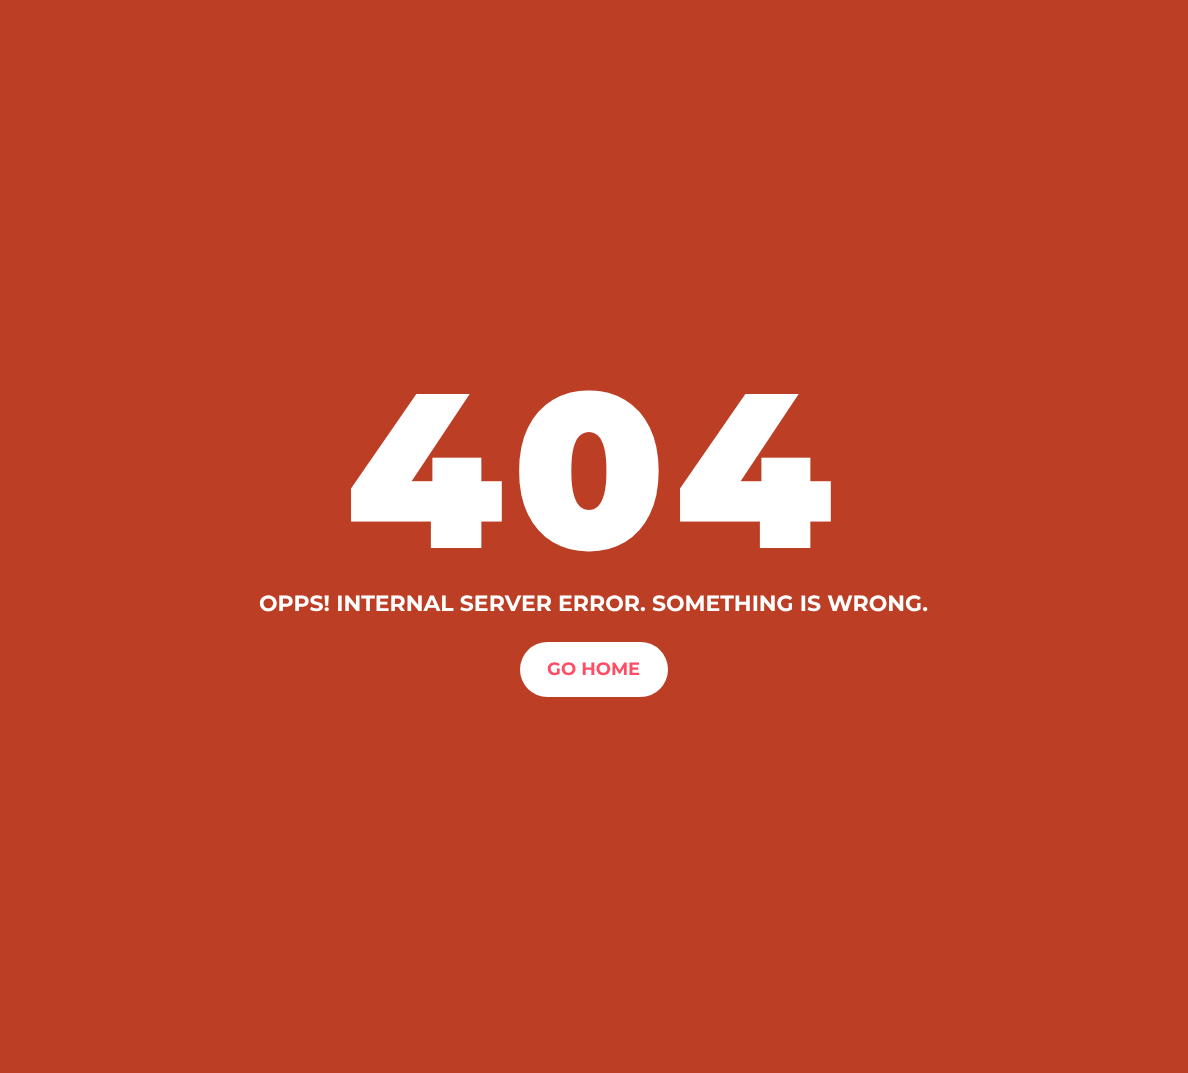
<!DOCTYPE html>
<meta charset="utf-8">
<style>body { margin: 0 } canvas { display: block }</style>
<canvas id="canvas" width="1188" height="1073"></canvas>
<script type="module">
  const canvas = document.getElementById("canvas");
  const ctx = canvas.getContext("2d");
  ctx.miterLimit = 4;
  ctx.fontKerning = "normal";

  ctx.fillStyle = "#bc3e25";
  ctx.fillRect(0, 0, 1188, 1073);
  ctx.letterSpacing = "10px";
  ctx.font = "900 220px Montserrat";
  ctx.fillStyle = "#ffffff";
  ctx.fillText("404", 346, 548);
  ctx.letterSpacing = "0px";
  ctx.font = "bold 22px Montserrat";
  ctx.fillText("OPPS! INTERNAL SERVER ERROR. SOMETHING IS WRONG.", 259, 611);
  ctx.beginPath();
  ctx.roundRect(520, 642, 148, 55, 27.5);
  ctx.fill();
  ctx.font = "bold 18px Montserrat";
  ctx.fillStyle = "#ff4d66";
  ctx.fillText("GO HOME", 547, 675);
</script>
